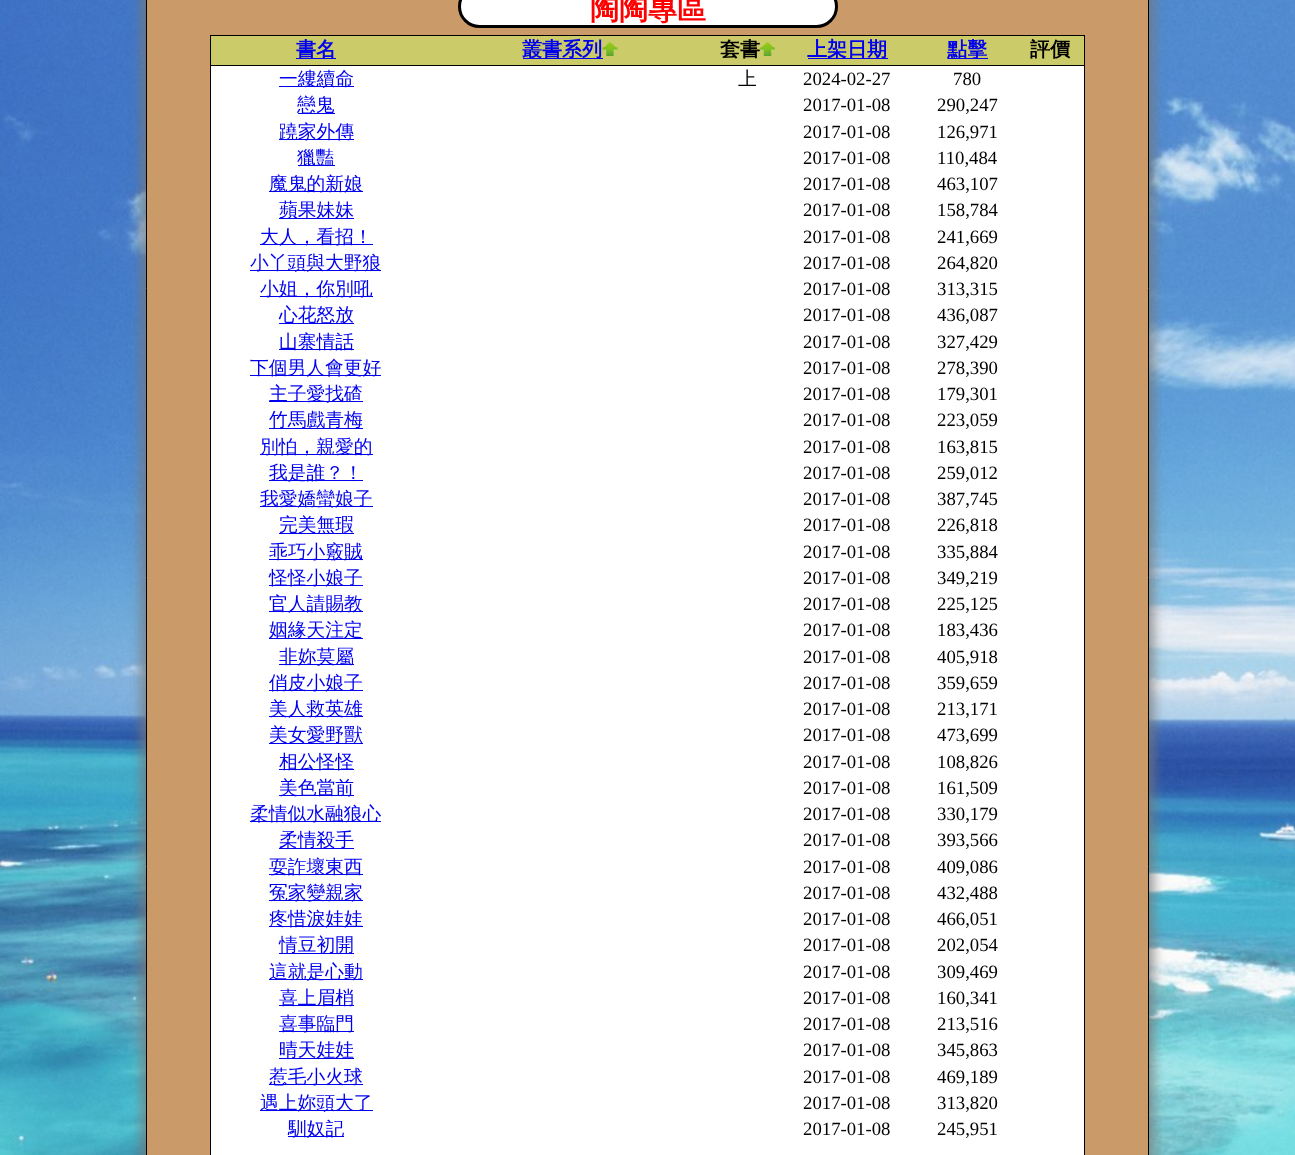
<!DOCTYPE html>
<meta charset="utf-8">
<style>body { margin: 0 } canvas { display: block }</style>
<canvas id="canvas" width="1295" height="1155"></canvas>
<script type="module">
  const canvas = document.getElementById("canvas");
  const ctx = canvas.getContext("2d");
  ctx.miterLimit = 4;
  ctx.fontKerning = "normal";
  async function loadImage(src) {
    const img = new Image();
    img.src = src;
    await img.decode();
    return img;
  }

  ctx.fillStyle = "#ffffff";
  ctx.fillRect(0, 0, 1295, 1155);
  ctx.drawImage(await loadImage("img1.png"), 0, 0, 1295, 1155);
  ctx.fillStyle = "rgba(119, 119, 119, 0.75)";
  ctx.filter = "blur(6px)";
  ctx.beginPath();
  ctx.rect(141, -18, 1013, 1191);
  ctx.fill();
  ctx.filter = "none";
  ctx.fillStyle = "#cb9a69";
  ctx.beginPath();
  ctx.rect(146.5, -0.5, 1002, 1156);
  ctx.fill();
  ctx.strokeStyle = "#000000";
  ctx.stroke();
  ctx.fillStyle = "#ffffff";
  ctx.beginPath();
  ctx.roundRect(459.5, -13.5, 377, 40, 20);
  ctx.fill();
  ctx.lineWidth = 3;
  ctx.stroke();
  ctx.font = "bold 29px WenQuanYi Zen Hei";
  ctx.fillStyle = "#ff0000";
  ctx.fillText("陶陶專區", 590, 19);
  ctx.fillStyle = "#ffffff";
  ctx.fillRect(211, 66, 873, 1089);
  ctx.fillStyle = "#000000";
  ctx.fillRect(210, 35, 875, 1);
  ctx.fillRect(1084, 35, 1, 1120);
  ctx.fillRect(210, 35, 1, 1120);
  ctx.fillStyle = "#cbcb69";
  ctx.fillRect(211, 36, 873, 29);
  ctx.fillStyle = "#0000ee";
  ctx.fillRect(296, 58, 40, 1);
  ctx.font = "bold 20px WenQuanYi Zen Hei";
  ctx.fillText("書名", 296, 56);
  ctx.fillRect(523, 58, 80, 1);
  ctx.fillText("叢書系列", 522, 56);
  ctx.drawImage(await loadImage("img2.png"), 602, 42, 16, 14);
  ctx.fillStyle = "#000000";
  ctx.fillText("套書", 720, 56);
  ctx.drawImage(await loadImage("img3.png"), 760, 42, 15, 14);
  ctx.fillStyle = "#0000ee";
  ctx.fillRect(808, 58, 80, 1);
  ctx.fillText("上架日期", 807, 56);
  ctx.fillRect(948, 58, 40, 1);
  ctx.fillText("點擊", 947, 56);
  ctx.fillStyle = "#000000";
  ctx.fillRect(210, 65, 875, 1);
  ctx.fillText("評價", 1030, 56);
  ctx.fillStyle = "#0000ee";
  ctx.fillRect(279, 86, 75, 1);
  ctx.font = "500 18.75px WenQuanYi Zen Hei";
  ctx.fillText("一縷續命", 279, 85);
  ctx.fillStyle = "#000000";
  ctx.fillText("上", 738, 85);
  ctx.font = "18.75px Liberation Serif";
  ctx.fillText("2024-02-27", 803, 85);
  ctx.fillText("780", 953, 85);
  ctx.fillStyle = "#0000ee";
  ctx.fillRect(298, 113, 37, 1);
  ctx.font = "500 18.75px WenQuanYi Zen Hei";
  ctx.fillText("戀鬼", 297, 111);
  ctx.font = "18.75px Liberation Serif";
  ctx.fillStyle = "#000000";
  ctx.fillText("2017-01-08", 803, 111);
  ctx.fillText("290,247", 937, 111);
  ctx.fillStyle = "#0000ee";
  ctx.fillRect(279, 139, 75, 1);
  ctx.font = "500 18.75px WenQuanYi Zen Hei";
  ctx.fillText("蹺家外傳", 279, 138);
  ctx.font = "18.75px Liberation Serif";
  ctx.fillStyle = "#000000";
  ctx.fillText("2017-01-08", 803, 138);
  ctx.fillText("126,971", 937, 138);
  ctx.fillStyle = "#0000ee";
  ctx.fillRect(298, 165, 37, 1);
  ctx.font = "500 18.75px WenQuanYi Zen Hei";
  ctx.fillText("獵豔", 297, 164);
  ctx.font = "18.75px Liberation Serif";
  ctx.fillStyle = "#000000";
  ctx.fillText("2017-01-08", 803, 164);
  ctx.fillText("110,484", 937, 164);
  ctx.fillStyle = "#0000ee";
  ctx.fillRect(269, 191, 94, 1);
  ctx.font = "500 18.75px WenQuanYi Zen Hei";
  ctx.fillText("魔鬼的新娘", 269, 190);
  ctx.font = "18.75px Liberation Serif";
  ctx.fillStyle = "#000000";
  ctx.fillText("2017-01-08", 803, 190);
  ctx.fillText("463,107", 937, 190);
  ctx.fillStyle = "#0000ee";
  ctx.fillRect(279, 218, 75, 1);
  ctx.font = "500 18.75px WenQuanYi Zen Hei";
  ctx.fillText("蘋果妹妹", 279, 216);
  ctx.font = "18.75px Liberation Serif";
  ctx.fillStyle = "#000000";
  ctx.fillText("2017-01-08", 803, 216);
  ctx.fillText("158,784", 937, 216);
  ctx.fillStyle = "#0000ee";
  ctx.fillRect(260, 244, 113, 1);
  ctx.font = "500 18.75px WenQuanYi Zen Hei";
  ctx.fillText("大人，看招！", 260, 243);
  ctx.font = "18.75px Liberation Serif";
  ctx.fillStyle = "#000000";
  ctx.fillText("2017-01-08", 803, 243);
  ctx.fillText("241,669", 937, 243);
  ctx.fillStyle = "#0000ee";
  ctx.fillRect(250, 270, 131, 1);
  ctx.font = "500 18.75px WenQuanYi Zen Hei";
  ctx.fillText("小丫頭與大野狼", 250, 269);
  ctx.font = "18.75px Liberation Serif";
  ctx.fillStyle = "#000000";
  ctx.fillText("2017-01-08", 803, 269);
  ctx.fillText("264,820", 937, 269);
  ctx.fillStyle = "#0000ee";
  ctx.fillRect(260, 296, 113, 1);
  ctx.font = "500 18.75px WenQuanYi Zen Hei";
  ctx.fillText("小姐，你別吼", 260, 295);
  ctx.font = "18.75px Liberation Serif";
  ctx.fillStyle = "#000000";
  ctx.fillText("2017-01-08", 803, 295);
  ctx.fillText("313,315", 937, 295);
  ctx.fillStyle = "#0000ee";
  ctx.fillRect(279, 323, 75, 1);
  ctx.font = "500 18.75px WenQuanYi Zen Hei";
  ctx.fillText("心花怒放", 279, 321);
  ctx.font = "18.75px Liberation Serif";
  ctx.fillStyle = "#000000";
  ctx.fillText("2017-01-08", 803, 321);
  ctx.fillText("436,087", 937, 321);
  ctx.fillStyle = "#0000ee";
  ctx.fillRect(279, 349, 75, 1);
  ctx.font = "500 18.75px WenQuanYi Zen Hei";
  ctx.fillText("山寨情話", 279, 348);
  ctx.font = "18.75px Liberation Serif";
  ctx.fillStyle = "#000000";
  ctx.fillText("2017-01-08", 803, 348);
  ctx.fillText("327,429", 937, 348);
  ctx.fillStyle = "#0000ee";
  ctx.fillRect(250, 375, 131, 1);
  ctx.font = "500 18.75px WenQuanYi Zen Hei";
  ctx.fillText("下個男人會更好", 250, 374);
  ctx.font = "18.75px Liberation Serif";
  ctx.fillStyle = "#000000";
  ctx.fillText("2017-01-08", 803, 374);
  ctx.fillText("278,390", 937, 374);
  ctx.fillStyle = "#0000ee";
  ctx.fillRect(269, 401, 94, 1);
  ctx.font = "500 18.75px WenQuanYi Zen Hei";
  ctx.fillText("主子愛找碴", 269, 400);
  ctx.font = "18.75px Liberation Serif";
  ctx.fillStyle = "#000000";
  ctx.fillText("2017-01-08", 803, 400);
  ctx.fillText("179,301", 937, 400);
  ctx.fillStyle = "#0000ee";
  ctx.fillRect(269, 428, 94, 1);
  ctx.font = "500 18.75px WenQuanYi Zen Hei";
  ctx.fillText("竹馬戲青梅", 269, 426);
  ctx.font = "18.75px Liberation Serif";
  ctx.fillStyle = "#000000";
  ctx.fillText("2017-01-08", 803, 426);
  ctx.fillText("223,059", 937, 426);
  ctx.fillStyle = "#0000ee";
  ctx.fillRect(260, 454, 113, 1);
  ctx.font = "500 18.75px WenQuanYi Zen Hei";
  ctx.fillText("別怕，親愛的", 260, 453);
  ctx.font = "18.75px Liberation Serif";
  ctx.fillStyle = "#000000";
  ctx.fillText("2017-01-08", 803, 453);
  ctx.fillText("163,815", 937, 453);
  ctx.fillStyle = "#0000ee";
  ctx.fillRect(269, 480, 94, 1);
  ctx.font = "500 18.75px WenQuanYi Zen Hei";
  ctx.fillText("我是誰？！", 269, 479);
  ctx.font = "18.75px Liberation Serif";
  ctx.fillStyle = "#000000";
  ctx.fillText("2017-01-08", 803, 479);
  ctx.fillText("259,012", 937, 479);
  ctx.fillStyle = "#0000ee";
  ctx.fillRect(260, 506, 113, 1);
  ctx.font = "500 18.75px WenQuanYi Zen Hei";
  ctx.fillText("我愛嬌蠻娘子", 260, 505);
  ctx.font = "18.75px Liberation Serif";
  ctx.fillStyle = "#000000";
  ctx.fillText("2017-01-08", 803, 505);
  ctx.fillText("387,745", 937, 505);
  ctx.fillStyle = "#0000ee";
  ctx.fillRect(279, 533, 75, 1);
  ctx.font = "500 18.75px WenQuanYi Zen Hei";
  ctx.fillText("完美無瑕", 279, 531);
  ctx.font = "18.75px Liberation Serif";
  ctx.fillStyle = "#000000";
  ctx.fillText("2017-01-08", 803, 531);
  ctx.fillText("226,818", 937, 531);
  ctx.fillStyle = "#0000ee";
  ctx.fillRect(269, 559, 94, 1);
  ctx.font = "500 18.75px WenQuanYi Zen Hei";
  ctx.fillText("乖巧小竅賊", 269, 558);
  ctx.font = "18.75px Liberation Serif";
  ctx.fillStyle = "#000000";
  ctx.fillText("2017-01-08", 803, 558);
  ctx.fillText("335,884", 937, 558);
  ctx.fillStyle = "#0000ee";
  ctx.fillRect(269, 585, 94, 1);
  ctx.font = "500 18.75px WenQuanYi Zen Hei";
  ctx.fillText("怪怪小娘子", 269, 584);
  ctx.font = "18.75px Liberation Serif";
  ctx.fillStyle = "#000000";
  ctx.fillText("2017-01-08", 803, 584);
  ctx.fillText("349,219", 937, 584);
  ctx.fillStyle = "#0000ee";
  ctx.fillRect(269, 611, 94, 1);
  ctx.font = "500 18.75px WenQuanYi Zen Hei";
  ctx.fillText("官人請賜教", 269, 610);
  ctx.font = "18.75px Liberation Serif";
  ctx.fillStyle = "#000000";
  ctx.fillText("2017-01-08", 803, 610);
  ctx.fillText("225,125", 937, 610);
  ctx.fillStyle = "#0000ee";
  ctx.fillRect(269, 638, 94, 1);
  ctx.font = "500 18.75px WenQuanYi Zen Hei";
  ctx.fillText("姻緣天注定", 269, 636);
  ctx.font = "18.75px Liberation Serif";
  ctx.fillStyle = "#000000";
  ctx.fillText("2017-01-08", 803, 636);
  ctx.fillText("183,436", 937, 636);
  ctx.fillStyle = "#0000ee";
  ctx.fillRect(279, 664, 75, 1);
  ctx.font = "500 18.75px WenQuanYi Zen Hei";
  ctx.fillText("非妳莫屬", 279, 663);
  ctx.font = "18.75px Liberation Serif";
  ctx.fillStyle = "#000000";
  ctx.fillText("2017-01-08", 803, 663);
  ctx.fillText("405,918", 937, 663);
  ctx.fillStyle = "#0000ee";
  ctx.fillRect(269, 690, 94, 1);
  ctx.font = "500 18.75px WenQuanYi Zen Hei";
  ctx.fillText("俏皮小娘子", 269, 689);
  ctx.font = "18.75px Liberation Serif";
  ctx.fillStyle = "#000000";
  ctx.fillText("2017-01-08", 803, 689);
  ctx.fillText("359,659", 937, 689);
  ctx.fillStyle = "#0000ee";
  ctx.fillRect(269, 716, 94, 1);
  ctx.font = "500 18.75px WenQuanYi Zen Hei";
  ctx.fillText("美人救英雄", 269, 715);
  ctx.font = "18.75px Liberation Serif";
  ctx.fillStyle = "#000000";
  ctx.fillText("2017-01-08", 803, 715);
  ctx.fillText("213,171", 937, 715);
  ctx.fillStyle = "#0000ee";
  ctx.fillRect(269, 743, 94, 1);
  ctx.font = "500 18.75px WenQuanYi Zen Hei";
  ctx.fillText("美女愛野獸", 269, 741);
  ctx.font = "18.75px Liberation Serif";
  ctx.fillStyle = "#000000";
  ctx.fillText("2017-01-08", 803, 741);
  ctx.fillText("473,699", 937, 741);
  ctx.fillStyle = "#0000ee";
  ctx.fillRect(279, 769, 75, 1);
  ctx.font = "500 18.75px WenQuanYi Zen Hei";
  ctx.fillText("相公怪怪", 279, 768);
  ctx.font = "18.75px Liberation Serif";
  ctx.fillStyle = "#000000";
  ctx.fillText("2017-01-08", 803, 768);
  ctx.fillText("108,826", 937, 768);
  ctx.fillStyle = "#0000ee";
  ctx.fillRect(279, 795, 75, 1);
  ctx.font = "500 18.75px WenQuanYi Zen Hei";
  ctx.fillText("美色當前", 279, 794);
  ctx.font = "18.75px Liberation Serif";
  ctx.fillStyle = "#000000";
  ctx.fillText("2017-01-08", 803, 794);
  ctx.fillText("161,509", 937, 794);
  ctx.fillStyle = "#0000ee";
  ctx.fillRect(250, 821, 131, 1);
  ctx.font = "500 18.75px WenQuanYi Zen Hei";
  ctx.fillText("柔情似水融狼心", 250, 820);
  ctx.font = "18.75px Liberation Serif";
  ctx.fillStyle = "#000000";
  ctx.fillText("2017-01-08", 803, 820);
  ctx.fillText("330,179", 937, 820);
  ctx.fillStyle = "#0000ee";
  ctx.fillRect(279, 848, 75, 1);
  ctx.font = "500 18.75px WenQuanYi Zen Hei";
  ctx.fillText("柔情殺手", 279, 846);
  ctx.font = "18.75px Liberation Serif";
  ctx.fillStyle = "#000000";
  ctx.fillText("2017-01-08", 803, 846);
  ctx.fillText("393,566", 937, 846);
  ctx.fillStyle = "#0000ee";
  ctx.fillRect(269, 874, 94, 1);
  ctx.font = "500 18.75px WenQuanYi Zen Hei";
  ctx.fillText("耍詐壞東西", 269, 873);
  ctx.font = "18.75px Liberation Serif";
  ctx.fillStyle = "#000000";
  ctx.fillText("2017-01-08", 803, 873);
  ctx.fillText("409,086", 937, 873);
  ctx.fillStyle = "#0000ee";
  ctx.fillRect(269, 900, 94, 1);
  ctx.font = "500 18.75px WenQuanYi Zen Hei";
  ctx.fillText("冤家變親家", 269, 899);
  ctx.font = "18.75px Liberation Serif";
  ctx.fillStyle = "#000000";
  ctx.fillText("2017-01-08", 803, 899);
  ctx.fillText("432,488", 937, 899);
  ctx.fillStyle = "#0000ee";
  ctx.fillRect(269, 926, 94, 1);
  ctx.font = "500 18.75px WenQuanYi Zen Hei";
  ctx.fillText("疼惜淚娃娃", 269, 925);
  ctx.font = "18.75px Liberation Serif";
  ctx.fillStyle = "#000000";
  ctx.fillText("2017-01-08", 803, 925);
  ctx.fillText("466,051", 937, 925);
  ctx.fillStyle = "#0000ee";
  ctx.fillRect(279, 953, 75, 1);
  ctx.font = "500 18.75px WenQuanYi Zen Hei";
  ctx.fillText("情豆初開", 279, 951);
  ctx.font = "18.75px Liberation Serif";
  ctx.fillStyle = "#000000";
  ctx.fillText("2017-01-08", 803, 951);
  ctx.fillText("202,054", 937, 951);
  ctx.fillStyle = "#0000ee";
  ctx.fillRect(269, 979, 94, 1);
  ctx.font = "500 18.75px WenQuanYi Zen Hei";
  ctx.fillText("這就是心動", 269, 978);
  ctx.font = "18.75px Liberation Serif";
  ctx.fillStyle = "#000000";
  ctx.fillText("2017-01-08", 803, 978);
  ctx.fillText("309,469", 937, 978);
  ctx.fillStyle = "#0000ee";
  ctx.fillRect(279, 1005, 75, 1);
  ctx.font = "500 18.75px WenQuanYi Zen Hei";
  ctx.fillText("喜上眉梢", 279, 1004);
  ctx.font = "18.75px Liberation Serif";
  ctx.fillStyle = "#000000";
  ctx.fillText("2017-01-08", 803, 1004);
  ctx.fillText("160,341", 937, 1004);
  ctx.fillStyle = "#0000ee";
  ctx.fillRect(279, 1031, 75, 1);
  ctx.font = "500 18.75px WenQuanYi Zen Hei";
  ctx.fillText("喜事臨門", 279, 1030);
  ctx.font = "18.75px Liberation Serif";
  ctx.fillStyle = "#000000";
  ctx.fillText("2017-01-08", 803, 1030);
  ctx.fillText("213,516", 937, 1030);
  ctx.fillStyle = "#0000ee";
  ctx.fillRect(279, 1058, 75, 1);
  ctx.font = "500 18.75px WenQuanYi Zen Hei";
  ctx.fillText("晴天娃娃", 279, 1056);
  ctx.font = "18.75px Liberation Serif";
  ctx.fillStyle = "#000000";
  ctx.fillText("2017-01-08", 803, 1056);
  ctx.fillText("345,863", 937, 1056);
  ctx.fillStyle = "#0000ee";
  ctx.fillRect(269, 1084, 94, 1);
  ctx.font = "500 18.75px WenQuanYi Zen Hei";
  ctx.fillText("惹毛小火球", 269, 1083);
  ctx.font = "18.75px Liberation Serif";
  ctx.fillStyle = "#000000";
  ctx.fillText("2017-01-08", 803, 1083);
  ctx.fillText("469,189", 937, 1083);
  ctx.fillStyle = "#0000ee";
  ctx.fillRect(260, 1110, 113, 1);
  ctx.font = "500 18.75px WenQuanYi Zen Hei";
  ctx.fillText("遇上妳頭大了", 260, 1109);
  ctx.font = "18.75px Liberation Serif";
  ctx.fillStyle = "#000000";
  ctx.fillText("2017-01-08", 803, 1109);
  ctx.fillText("313,820", 937, 1109);
  ctx.fillStyle = "#0000ee";
  ctx.fillRect(288, 1136, 56, 1);
  ctx.font = "500 18.75px WenQuanYi Zen Hei";
  ctx.fillText("馴奴記", 288, 1135);
  ctx.font = "18.75px Liberation Serif";
  ctx.fillStyle = "#000000";
  ctx.fillText("2017-01-08", 803, 1135);
  ctx.fillText("245,951", 937, 1135);
</script>
